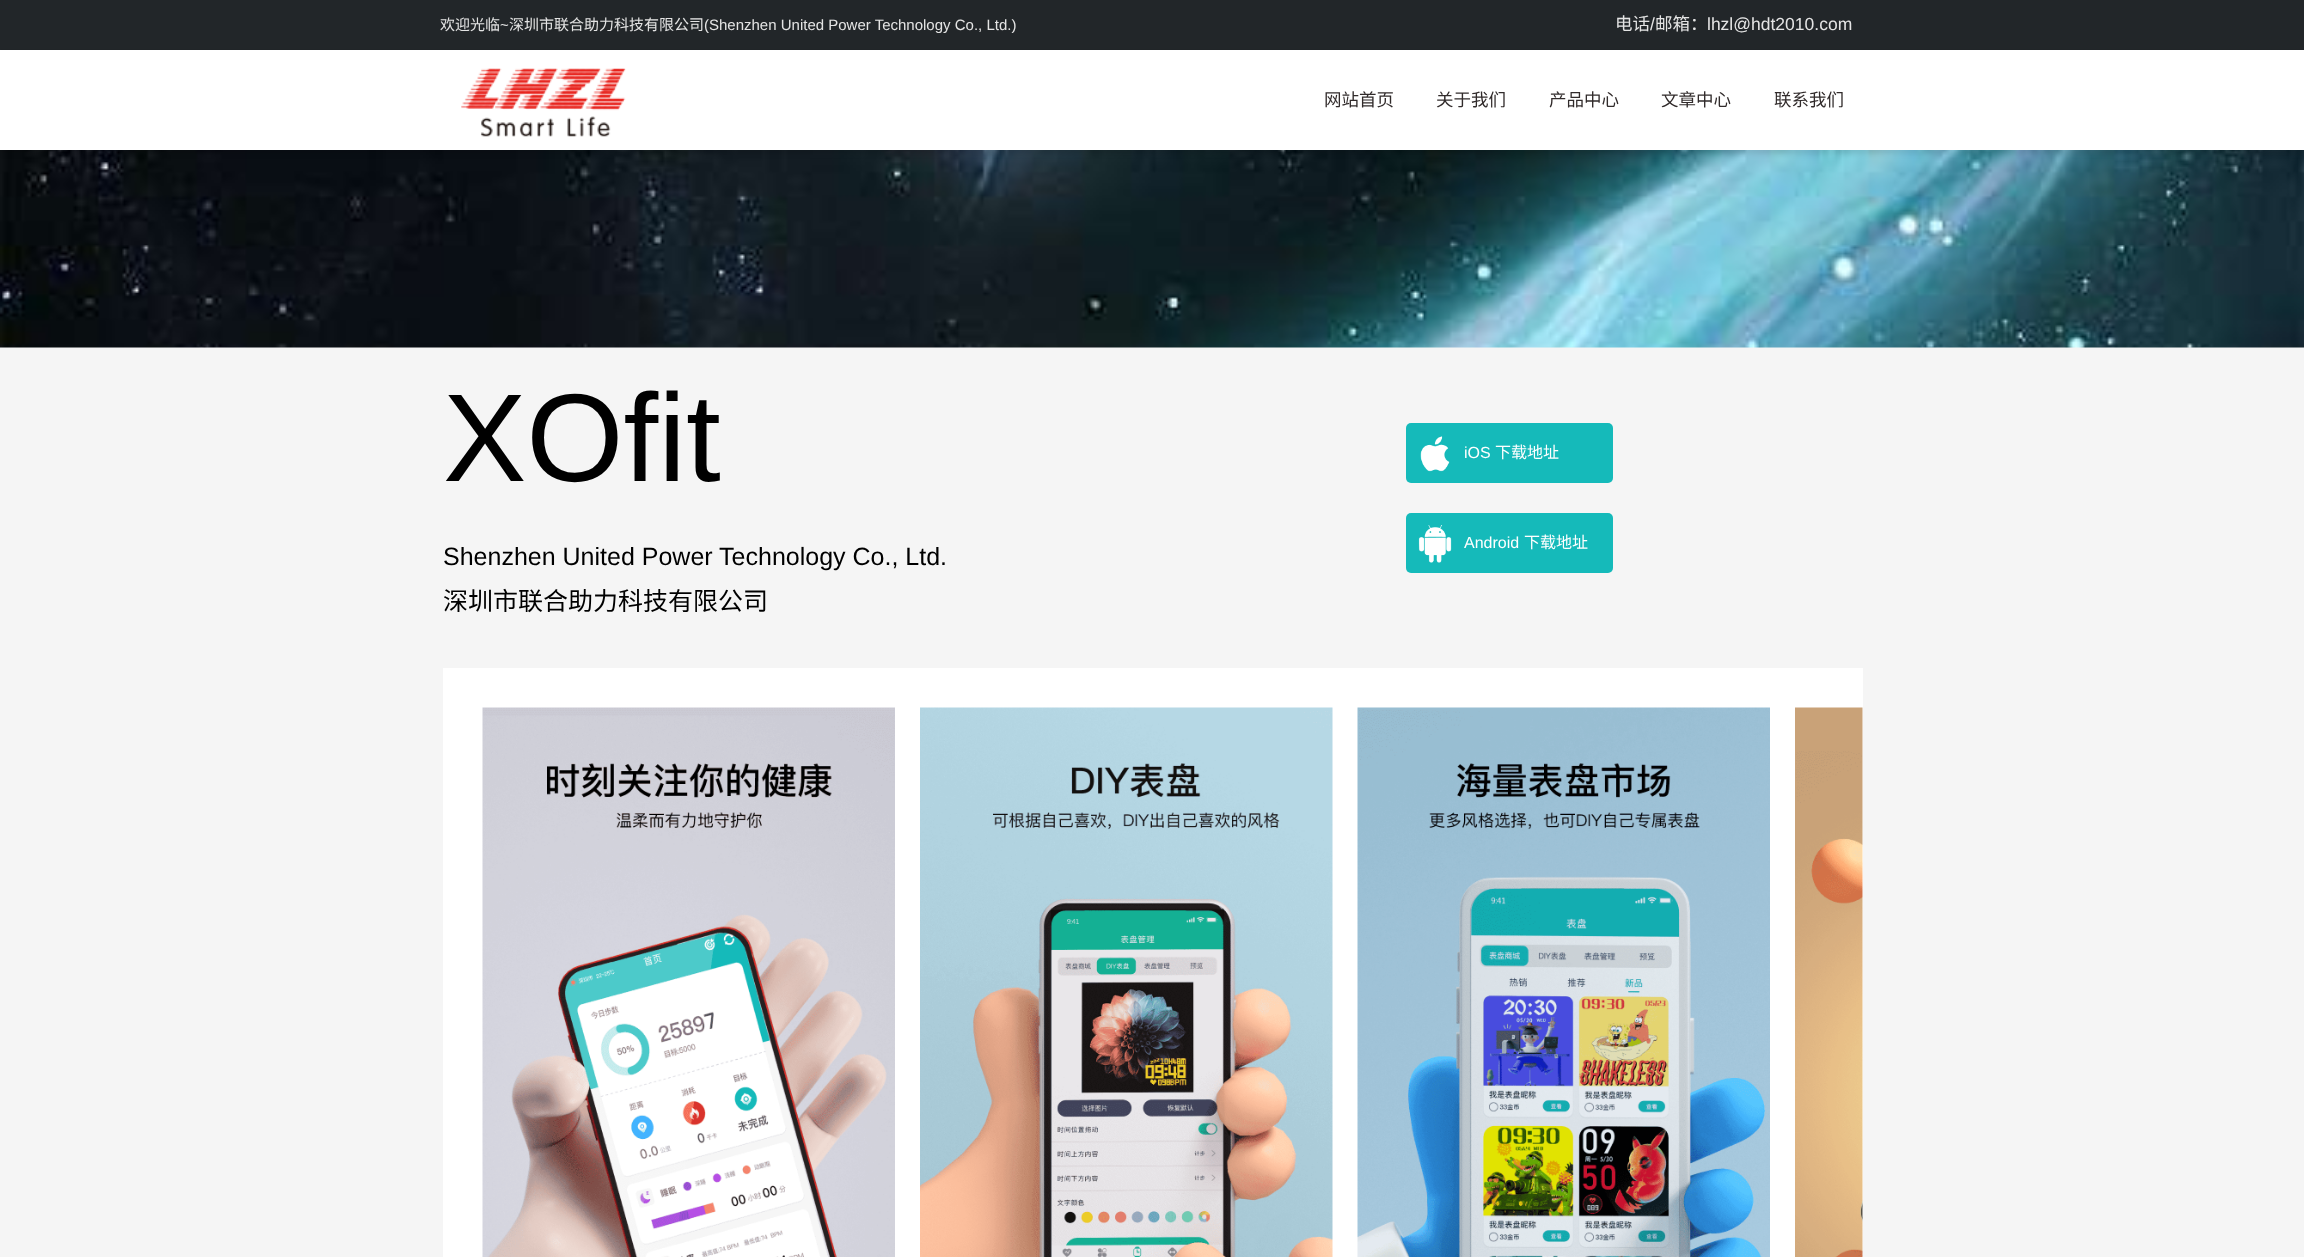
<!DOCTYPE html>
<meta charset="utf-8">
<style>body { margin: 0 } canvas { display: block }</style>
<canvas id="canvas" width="2304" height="1257"></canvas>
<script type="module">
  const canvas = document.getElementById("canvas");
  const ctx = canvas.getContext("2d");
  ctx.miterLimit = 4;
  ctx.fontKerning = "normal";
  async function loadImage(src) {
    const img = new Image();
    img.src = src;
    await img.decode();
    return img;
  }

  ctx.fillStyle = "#f5f5f5";
  ctx.fillRect(0, 0, 2304, 1257);
  ctx.fillStyle = "#222629";
  ctx.fillRect(0, 0, 2304, 50);
  ctx.font = "15px Noto Sans CJK SC";
  ctx.fillStyle = "#e4e4e4";
  ctx.fillText("欢迎光临", 440, 30);
  ctx.font = "15px Liberation Sans";
  ctx.fillText("~", 500, 30);
  ctx.font = "15px Noto Sans CJK SC";
  ctx.fillText("深圳市联合助力科技有限公司", 509, 30);
  ctx.font = "15px Liberation Sans";
  ctx.fillText("(Shenzhen United Power Technology Co., Ltd.)", 704, 30);
  ctx.font = "17.5px Noto Sans CJK SC";
  ctx.fillText("电话", 1615, 30);
  ctx.font = "17.5px Liberation Sans";
  ctx.fillText("/", 1650, 30);
  ctx.font = "17.5px Noto Sans CJK SC";
  ctx.fillText("邮箱：", 1655, 30);
  ctx.font = "17.5px Liberation Sans";
  ctx.fillText("lhzl@hdt2010.com", 1707, 30);
  ctx.drawImage(await loadImage("img2.png"), 0, 150, 2304, 198);
  ctx.fillStyle = "rgba(0, 0, 0, 0.1)";
  ctx.filter = "blur(2.5px)";
  ctx.beginPath();
  ctx.rect(0, 54, 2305, 100);
  ctx.fill();
  ctx.filter = "none";
  ctx.fillStyle = "#ffffff";
  ctx.fillRect(0, 50, 2304, 100);
  ctx.drawImage(await loadImage("img1.png"), 461, 68, 165, 69);
  ctx.font = "17.5px Noto Sans CJK SC";
  ctx.fillStyle = "#312b2b";
  ctx.fillText("网站首页", 1324, 106);
  ctx.fillText("关于我们", 1436, 106);
  ctx.fillText("产品中心", 1549, 106);
  ctx.fillText("文章中心", 1661, 106);
  ctx.fillText("联系我们", 1774, 106);
  ctx.font = "125px Liberation Sans";
  ctx.fillStyle = "#000000";
  ctx.fillText("XOfit", 443, 481);
  ctx.font = "25px Liberation Sans";
  ctx.fillText("Shenzhen United Power Technology Co., Ltd.", 443, 565);
  ctx.font = "25px Noto Sans CJK SC";
  ctx.fillText("深圳市联合助力科技有限公司", 443, 610);
  ctx.fillStyle = "#15baba";
  ctx.beginPath();
  ctx.roundRect(1406, 423, 207, 60, 5);
  ctx.fill();
  ctx.drawImage(await loadImage("img3.png"), 1420, 436, 30, 36);
  ctx.font = "16px Liberation Sans";
  ctx.fillStyle = "#ffffff";
  ctx.fillText("iOS", 1464, 458);
  ctx.font = "16px Noto Sans CJK SC";
  ctx.fillText("下载地址", 1495, 458);
  ctx.fillStyle = "#15baba";
  ctx.beginPath();
  ctx.roundRect(1406, 513, 207, 60, 5);
  ctx.fill();
  ctx.drawImage(await loadImage("img4.png"), 1418, 525, 34, 38);
  ctx.font = "16px Liberation Sans";
  ctx.fillStyle = "#ffffff";
  ctx.fillText("Android", 1464, 548);
  ctx.font = "16px Noto Sans CJK SC";
  ctx.fillText("下载地址", 1524, 548);
  ctx.fillRect(443, 668, 1420, 589);
  ctx.drawImage(await loadImage("img5.png"), 482, 707, 413, 550);
  ctx.drawImage(await loadImage("img6.png"), 920, 707, 413, 550);
  ctx.drawImage(await loadImage("img7.png"), 1357, 707, 413, 550);
  ctx.drawImage(await loadImage("img8.png"), 1795, 707, 68, 550);
</script>
